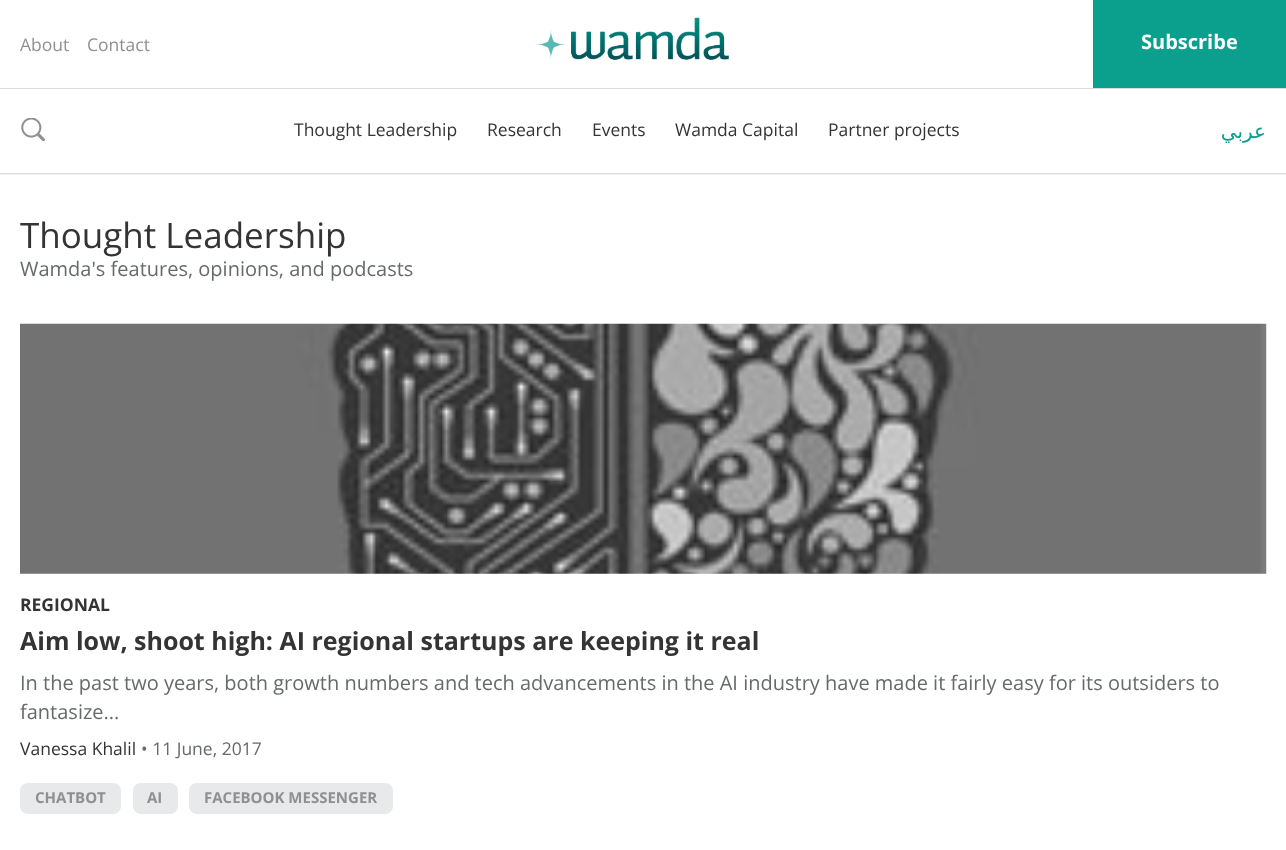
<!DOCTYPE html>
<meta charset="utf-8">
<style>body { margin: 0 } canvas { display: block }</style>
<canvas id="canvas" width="1286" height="850"></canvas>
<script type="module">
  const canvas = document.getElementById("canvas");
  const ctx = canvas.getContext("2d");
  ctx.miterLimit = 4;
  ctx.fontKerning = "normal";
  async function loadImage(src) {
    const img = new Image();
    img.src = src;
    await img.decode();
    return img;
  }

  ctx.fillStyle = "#ffffff";
  ctx.fillRect(0, 0, 1286, 850);
  ctx.fillStyle = "#eeeeee";
  ctx.fillRect(0, 174, 1286, 1);
  ctx.font = "17.5px Open Sans";
  ctx.fillStyle = "#8e9091";
  ctx.fillText("About", 20, 51);
  ctx.fillText("Contact", 87, 51);
  ctx.drawImage(await loadImage("img1.png"), 535, 17, 194, 44);
  ctx.fillStyle = "#0b9f8e";
  ctx.fillRect(1093, 0, 193, 88);
  ctx.font = "bold 20px Open Sans";
  ctx.fillStyle = "#ffffff";
  ctx.fillText("Subscribe", 1141, 49);
  ctx.fillStyle = "#dddddd";
  ctx.fillRect(0, 88, 1286, 1);
  ctx.fillRect(0, 173, 1286, 1);
  ctx.drawImage(await loadImage("img2.png"), 21, 118, 24, 23);
  ctx.font = "17.5px Open Sans";
  ctx.fillStyle = "#343434";
  ctx.fillText("Thought Leadership", 294, 136);
  ctx.fillText("Research", 487, 136);
  ctx.fillText("Events", 592, 136);
  ctx.fillText("Wamda Capital", 675, 136);
  ctx.fillText("Partner projects", 828, 136);
  ctx.direction = "rtl";
  ctx.font = "20px DejaVu Sans";
  ctx.fillStyle = "#0b9f8e";
  ctx.fillText("عربي", 1266, 138);
  ctx.direction = "ltr";
  ctx.font = "35px Open Sans";
  ctx.fillStyle = "#343434";
  ctx.fillText("Thought Leadership", 20, 248);
  ctx.font = "20px Open Sans";
  ctx.fillStyle = "#676a6c";
  ctx.fillText("Wamda's features, opinions, and podcasts", 20, 276);
  ctx.drawImage(await loadImage("img3.png"), 20, 323, 1247, 251);
  ctx.font = "bold 17.5px Open Sans";
  ctx.fillStyle = "#343434";
  ctx.fillText("REGIONAL", 20, 611);
  ctx.font = "bold 25px Open Sans";
  ctx.fillText("Aim low, shoot high: AI regional startups are keeping it real", 20, 650);
  ctx.font = "20px Open Sans";
  ctx.fillStyle = "#676a6c";
  ctx.fillText("In the past two years, both growth numbers and tech advancements in the AI industry have made it fairly easy for its outsiders to", 20, 690);
  ctx.fillText("fantasize...", 20, 719);
  ctx.font = "17.5px Open Sans";
  ctx.fillStyle = "#343434";
  ctx.fillText("Vanessa Khalil", 20, 755);
  ctx.fillStyle = "#676a6c";
  ctx.fillText("• 11 June, 2017", 141, 755);
  ctx.fillStyle = "#e7e9ea";
  ctx.beginPath();
  ctx.roundRect(20, 783, 101, 31, 8);
  ctx.fill();
  ctx.font = "bold 15px Open Sans";
  ctx.fillStyle = "#8e9091";
  ctx.fillText("CHATBOT", 35, 803);
  ctx.fillStyle = "#e7e9ea";
  ctx.beginPath();
  ctx.roundRect(133, 783, 45, 31, 8);
  ctx.fill();
  ctx.fillStyle = "#8e9091";
  ctx.fillText("AI", 147, 803);
  ctx.fillStyle = "#e7e9ea";
  ctx.beginPath();
  ctx.roundRect(189, 783, 204, 31, 8);
  ctx.fill();
  ctx.fillStyle = "#8e9091";
  ctx.fillText("FACEBOOK MESSENGER", 204, 803);
</script>
